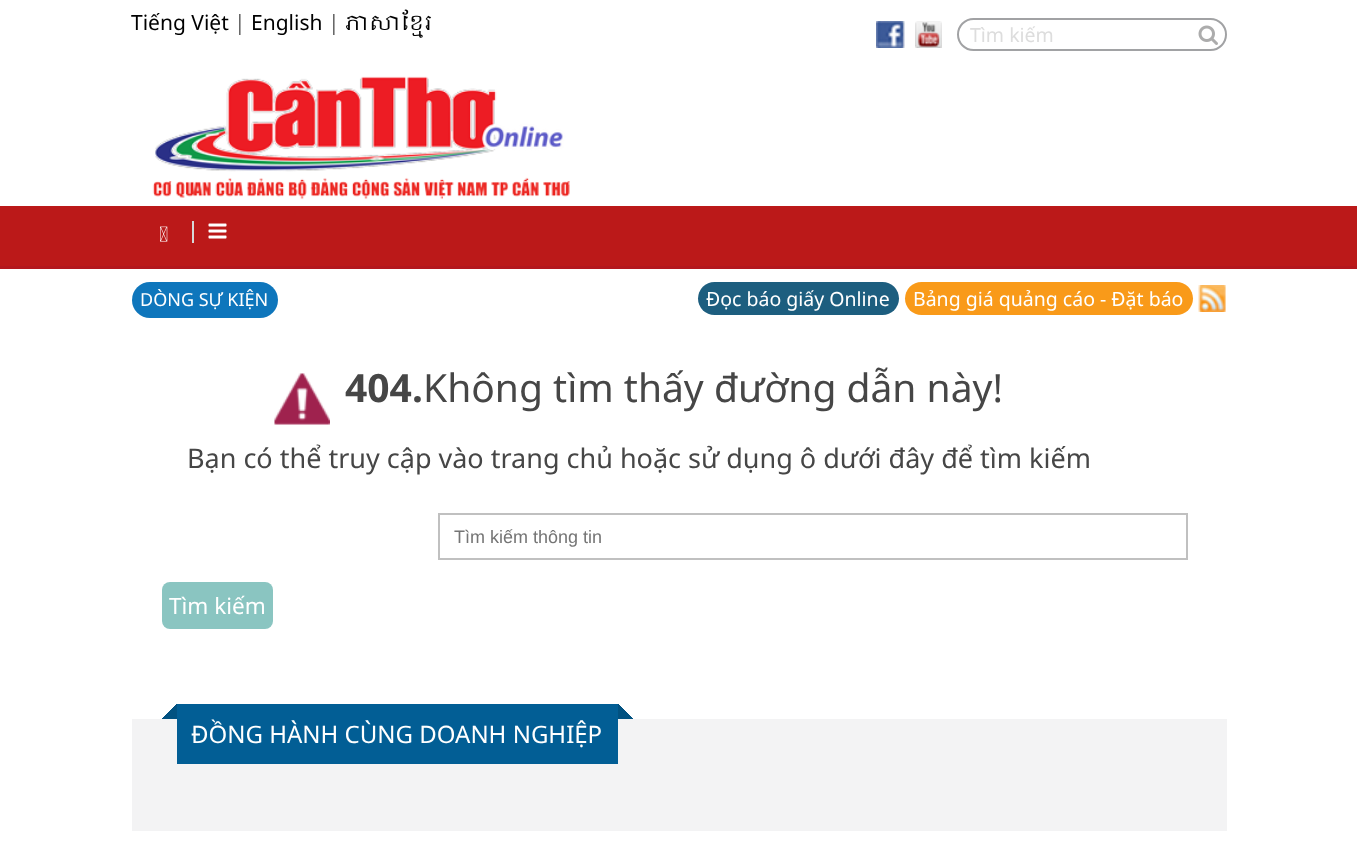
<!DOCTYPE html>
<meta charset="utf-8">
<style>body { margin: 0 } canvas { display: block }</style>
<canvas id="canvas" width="1357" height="848"></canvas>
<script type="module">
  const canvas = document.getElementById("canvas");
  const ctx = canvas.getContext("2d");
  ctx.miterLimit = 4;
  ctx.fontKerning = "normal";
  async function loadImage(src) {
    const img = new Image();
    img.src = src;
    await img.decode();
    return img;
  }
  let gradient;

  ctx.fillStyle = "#ffffff";
  ctx.fillRect(0, 0, 1357, 848);
  ctx.font = "21px Noto Sans";
  ctx.fillStyle = "#000000";
  ctx.fillText("Tiếng Việt", 131, 30);
  ctx.fillStyle = "#666666";
  ctx.fillText("|", 234, 30);
  ctx.fillStyle = "#000000";
  ctx.fillText("English", 251, 30);
  ctx.fillStyle = "#666666";
  ctx.fillText("|", 328, 30);
  ctx.font = "21px Khmer";
  ctx.fillStyle = "#000000";
  ctx.fillText("ភាសាខ្មែរ", 345, 30);
  ctx.drawImage(await loadImage("img1.png"), 876, 21, 29, 27);
  ctx.drawImage(await loadImage("img2.png"), 915, 21, 27, 27);
  ctx.beginPath();
  ctx.roundRect(958, 19, 268, 31, 15.5);
  ctx.strokeStyle = "#a1a2a4";
  ctx.lineWidth = 2;
  ctx.stroke();
  ctx.font = "19.5px Noto Sans";
  ctx.fillStyle = "#dddddd";
  ctx.fillText("Tìm kiếm", 970, 42);
  ctx.drawImage(await loadImage("img3.png"), 1198, 25, 20, 20);
  ctx.drawImage(await loadImage("img4.png"), 152, 76, 418, 124);
  ctx.fillStyle = "#bb1919";
  ctx.fillRect(0, 206, 1357, 60);
  ctx.fillStyle = "#b3171d";
  ctx.fillRect(0, 266, 1357, 3);
  ctx.drawImage(await loadImage("img5.png"), 160, 226, 8, 16);
  ctx.fillStyle = "#d7d7d7";
  ctx.fillRect(192, 221, 2, 22);
  ctx.drawImage(await loadImage("img6.png"), 208, 223, 19, 16);
  ctx.fillStyle = "#0e76bc";
  ctx.beginPath();
  ctx.roundRect(132, 282, 146, 36, 18);
  ctx.fill();
  ctx.font = "18px Noto Sans";
  ctx.fillStyle = "#ffffff";
  ctx.fillText("DÒNG SỰ KIỆN", 140, 306);
  ctx.fillStyle = "#1d5e7f";
  ctx.beginPath();
  ctx.roundRect(698, 282, 201, 33, 16.5);
  ctx.fill();
  ctx.font = "19.5px Noto Sans";
  ctx.fillStyle = "#ffffff";
  ctx.fillText("Đọc báo giấy Online", 706, 306);
  ctx.fillStyle = "#f99a19";
  ctx.beginPath();
  ctx.roundRect(905, 282, 288, 33, 16.5);
  ctx.fill();
  ctx.fillStyle = "#ffffff";
  ctx.fillText("Bảng giá quảng cáo - Đặt báo", 913, 306);
  ctx.drawImage(await loadImage("img7.png"), 1198, 285, 28, 27);
  ctx.drawImage(await loadImage("img8.png"), 274, 373, 56, 52);
  ctx.font = "bold 39px Noto Sans";
  ctx.fillStyle = "#464646";
  ctx.fillText("404.", 345, 402);
  ctx.font = "39px Noto Sans";
  ctx.fillText("Không tìm thấy đường dẫn này!", 423, 402);
  ctx.font = "27px Noto Sans";
  ctx.fillText("Bạn có thể truy cập vào trang chủ hoặc sử dụng ô dưới đây để tìm kiếm", 187, 468);
  ctx.strokeStyle = "#c0c0c0";
  ctx.strokeRect(439, 514, 748, 45);
  ctx.font = "18px Liberation Sans";
  ctx.fillStyle = "#757575";
  ctx.fillText("Tìm kiếm thông tin", 454, 543);
  ctx.fillStyle = "#8ac5c1";
  ctx.beginPath();
  ctx.roundRect(162, 582, 111, 47, 8);
  ctx.fill();
  ctx.font = "22.5px Noto Sans";
  ctx.fillStyle = "#ffffff";
  ctx.fillText("Tìm kiếm", 169, 614);
  ctx.fillStyle = "#f3f3f4";
  ctx.fillRect(132, 719, 1095, 112);
  ctx.fillStyle = "#025e95";
  ctx.fillRect(177, 704, 441, 60);
  gradient = ctx.createLinearGradient(177, 719, 162, 704);
  gradient.addColorStop(0.5, "#025281");
  gradient.addColorStop(0.51, "#ffffff");
  ctx.fillStyle = gradient;
  ctx.fillRect(162, 704, 15, 15);
  gradient = ctx.createLinearGradient(618, 719, 633, 704);
  gradient.addColorStop(0.5, "#025281");
  gradient.addColorStop(0.51, "#ffffff");
  ctx.fillStyle = gradient;
  ctx.fillRect(618, 704, 15, 15);
  ctx.font = "24px Noto Sans";
  ctx.fillStyle = "#ffffff";
  ctx.fillText("ĐỒNG HÀNH CÙNG DOANH NGHIỆP", 191, 743);
</script>
